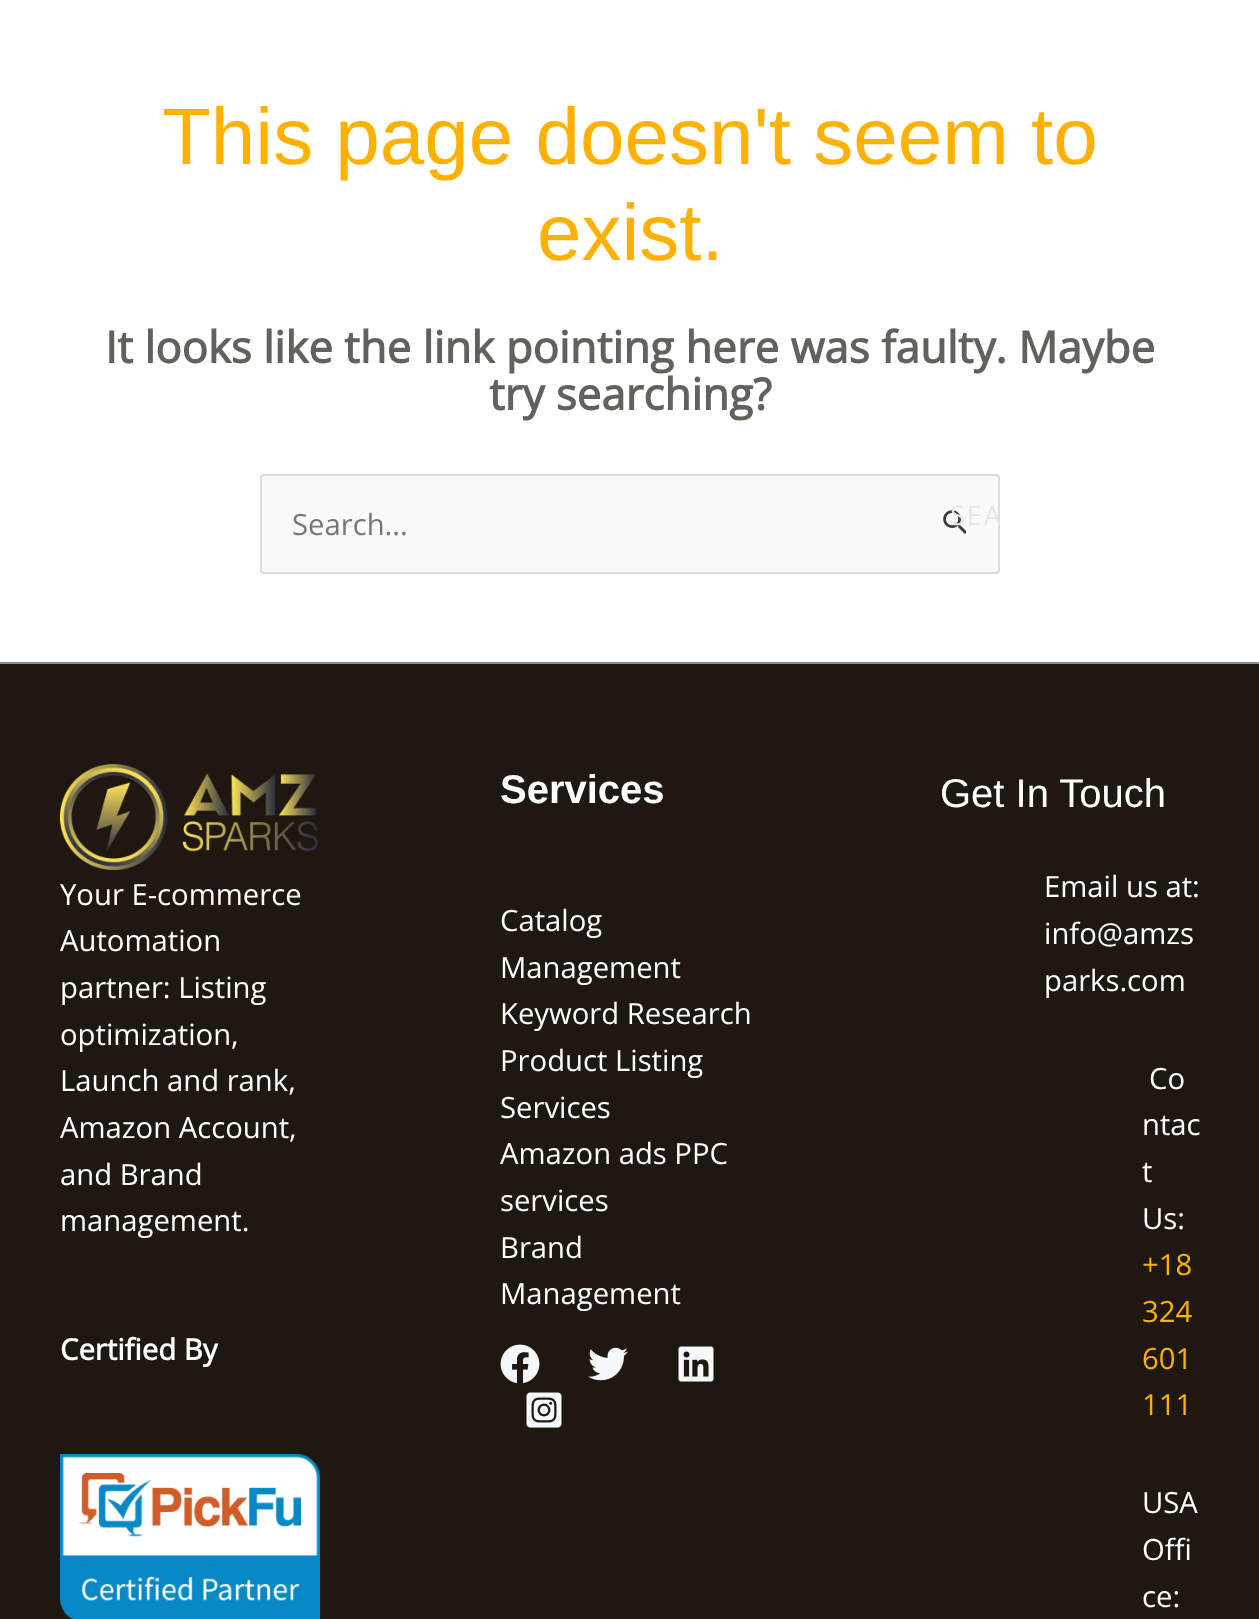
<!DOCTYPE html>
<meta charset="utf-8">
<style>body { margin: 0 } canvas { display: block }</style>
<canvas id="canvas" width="1259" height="1619"></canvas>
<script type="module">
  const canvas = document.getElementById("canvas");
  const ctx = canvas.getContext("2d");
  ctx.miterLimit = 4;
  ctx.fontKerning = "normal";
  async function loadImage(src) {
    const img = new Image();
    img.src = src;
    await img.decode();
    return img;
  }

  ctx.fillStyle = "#ffffff";
  ctx.fillRect(0, 0, 1259, 1619);
  ctx.font = "80px Liberation Sans";
  ctx.fillStyle = "#ffb100";
  ctx.fillText("This page doesn't seem to", 162, 164);
  ctx.fillText("exist.", 537, 260);
  ctx.font = "bold 43.75px Open Sans";
  ctx.fillStyle = "#62615c";
  ctx.fillText("It looks like the link pointing here was faulty. Maybe", 105, 363);
  ctx.fillText("try searching?", 489, 410);
  ctx.fillStyle = "#fafafa";
  ctx.beginPath();
  ctx.roundRect(261, 475, 738, 98, 3);
  ctx.fill();
  ctx.strokeStyle = "#dddddd";
  ctx.lineWidth = 2;
  ctx.stroke();
  ctx.font = "29.25px Open Sans";
  ctx.fillStyle = "#757575";
  ctx.fillText("Search...", 292, 535);
  ctx.drawImage(await loadImage("img1.png"), 943, 510, 23, 24);
  ctx.save();
  ctx.beginPath();
  ctx.roundRect(910, 474, 90, 80, 4);
  ctx.clip();
  ctx.letterSpacing = "2px";
  ctx.font = "27px Open Sans";
  ctx.fillStyle = "#e6e6e6";
  ctx.fillText("SEA", 950, 525);
  ctx.restore();
  ctx.fillStyle = "#1e1810";
  ctx.fillRect(0, 664, 1259, 955);
  ctx.fillStyle = "#908d8a";
  ctx.fillRect(0, 662, 1259, 2);
  ctx.drawImage(await loadImage("img2.png"), 60, 764, 259, 106);
  ctx.fillStyle = "#ffffff";
  ctx.fillText("Your E-commerce", 60, 905);
  ctx.fillText("Automation", 60, 951);
  ctx.fillText("partner: Listing", 60, 998);
  ctx.fillText("optimization,", 60, 1045);
  ctx.fillText("Launch and rank,", 60, 1091);
  ctx.fillText("Amazon Account,", 60, 1138);
  ctx.fillText("and Brand", 60, 1185);
  ctx.fillText("management.", 60, 1231);
  ctx.font = "bold 29.25px Open Sans";
  ctx.fillText("Certified By", 60, 1360);
  ctx.drawImage(await loadImage("img3.png"), 60, 1454, 260, 165);
  ctx.font = "bold 40px Liberation Sans";
  ctx.fillText("Services", 500, 803);
  ctx.font = "29.25px Open Sans";
  ctx.fillText("Catalog", 500, 931);
  ctx.fillText("Management", 500, 978);
  ctx.fillText("Keyword Research", 500, 1024);
  ctx.fillText("Product Listing", 500, 1071);
  ctx.fillText("Services", 500, 1118);
  ctx.fillText("Amazon ads PPC", 500, 1164);
  ctx.fillText("services", 500, 1211);
  ctx.fillText("Brand", 500, 1258);
  ctx.fillText("Management", 500, 1304);
  ctx.drawImage(await loadImage("img4.png"), 500, 1344, 40, 40);
  ctx.drawImage(await loadImage("img5.png"), 588, 1347, 40, 34);
  ctx.drawImage(await loadImage("img6.png"), 678, 1346, 36, 36);
  ctx.drawImage(await loadImage("img7.png"), 526, 1392, 36, 36);
  ctx.font = "40px Liberation Sans";
  ctx.fillText("Get In Touch", 940, 807);
  ctx.font = "29.25px Open Sans";
  ctx.fillText("Email us at:", 1044, 897);
  ctx.fillText("info@amzs", 1044, 944);
  ctx.fillText("parks.com", 1044, 991);
  ctx.fillText("Co", 1149, 1089);
  ctx.fillText("ntac", 1142, 1135);
  ctx.fillText("t", 1142, 1182);
  ctx.fillText("Us:", 1142, 1229);
  ctx.fillStyle = "#ffb100";
  ctx.fillText("+18", 1142, 1275);
  ctx.fillText("324", 1142, 1322);
  ctx.fillText("601", 1142, 1369);
  ctx.fillText("111", 1142, 1415);
  ctx.fillStyle = "#ffffff";
  ctx.fillText("USA", 1142, 1513);
  ctx.fillText("Offi", 1142, 1560);
  ctx.fillText("ce:", 1142, 1607);
</script>
